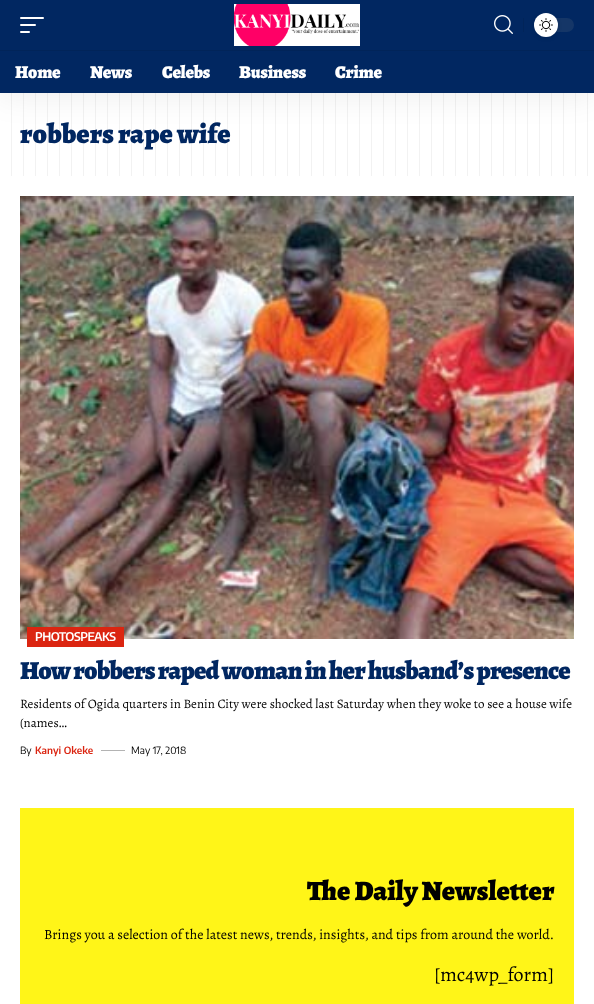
<!DOCTYPE html>
<meta charset="utf-8">
<style>body { margin: 0 } canvas { display: block }</style>
<canvas id="canvas" width="594" height="1004"></canvas>
<script type="module">
  const canvas = document.getElementById("canvas");
  const ctx = canvas.getContext("2d");
  ctx.miterLimit = 4;
  ctx.fontKerning = "normal";
  async function loadImage(src) {
    const img = new Image();
    img.src = src;
    await img.decode();
    return img;
  }

  ctx.fillStyle = "#ffffff";
  ctx.fillRect(0, 0, 594, 1004);
  ctx.font = "900 28px Alegreya";
  ctx.fillStyle = "#012761";
  ctx.fillText("robbers rape wife", 20, 143);
  ctx.drawImage(await loadImage("img4.png"), 11, 93, 577, 83);
  ctx.fillStyle = "rgba(0, 0, 0, 0.07)";
  ctx.filter = "blur(15px)";
  ctx.beginPath();
  ctx.rect(0, 4, 594, 93);
  ctx.fill();
  ctx.filter = "none";
  ctx.fillStyle = "#012761";
  ctx.fillRect(0, 0, 594, 93);
  ctx.fillStyle = "#ffffff";
  ctx.beginPath();
  ctx.roundRect(20, 17, 24, 2, 1);
  ctx.fill();
  ctx.beginPath();
  ctx.roundRect(20, 24, 16, 2, 1);
  ctx.fill();
  ctx.beginPath();
  ctx.roundRect(20, 31, 10, 2, 1);
  ctx.fill();
  ctx.drawImage(await loadImage("img1.png"), 234, 4, 126, 42);
  ctx.drawImage(await loadImage("img2.png"), 494, 15, 19, 19);
  ctx.fillStyle = "#012459";
  ctx.fillRect(523, 18, 1, 14);
  ctx.fillStyle = "#153667";
  ctx.beginPath();
  ctx.roundRect(534, 18, 40, 14, 7);
  ctx.fill();
  ctx.fillStyle = "rgba(0, 0, 0, 0.12)";
  ctx.filter = "blur(2px)";
  ctx.beginPath();
  ctx.roundRect(534, 14, 24, 24, 12);
  ctx.fill();
  ctx.filter = "none";
  ctx.fillStyle = "#ffffff";
  ctx.beginPath();
  ctx.arc(546, 25, 12, 0, Math.PI * 2);
  ctx.fill();
  ctx.drawImage(await loadImage("img3.png"), 539, 18, 14, 14);
  ctx.fillStyle = "#012459";
  ctx.fillRect(0, 50, 594, 1);
  ctx.letterSpacing = "-0.25px";
  ctx.font = "900 18px Alegreya";
  ctx.fillStyle = "#ffffff";
  ctx.fillText("Home", 15, 78);
  ctx.fillText("News", 90, 78);
  ctx.fillText("Celebs", 162, 78);
  ctx.fillText("Business", 239, 78);
  ctx.fillText("Crime", 335, 78);
  ctx.drawImage(await loadImage("img5.png"), 20, 196, 554, 443);
  ctx.fillStyle = "#db2511";
  ctx.fillRect(27, 627, 97, 20);
  ctx.letterSpacing = "-0.5px";
  ctx.font = "600 12px Encode Sans Condensed";
  ctx.fillStyle = "#ffffff";
  ctx.fillText("PHOTOSPEAKS", 35, 641);
  ctx.letterSpacing = "-0.8px";
  ctx.font = "900 26px Alegreya";
  ctx.fillStyle = "#012761";
  ctx.fillText("How robbers raped woman in her husband’s presence", 20, 679);
  ctx.letterSpacing = "0px";
  ctx.font = "13px Alegreya";
  ctx.fillStyle = "#000000";
  ctx.fillText("Residents of Ogida quarters in Benin City were shocked last Saturday when they woke to see a house wife", 20, 708);
  ctx.fillText("(names…", 20, 727);
  ctx.font = "10px Encode Sans Condensed";
  ctx.fillText("By", 20, 754);
  ctx.font = "600 10px Encode Sans Condensed";
  ctx.fillStyle = "#db2511";
  ctx.fillText("Kanyi Okeke", 35, 754);
  ctx.fillStyle = "#b3b3b3";
  ctx.fillRect(101, 750, 24, 1);
  ctx.font = "10px Encode Sans Condensed";
  ctx.fillStyle = "#000000";
  ctx.fillText("May 17, 2018", 131, 754);
  ctx.fillStyle = "#fff518";
  ctx.fillRect(20, 808, 554, 196);
  ctx.font = "900 28px Alegreya";
  ctx.fillStyle = "#000000";
  ctx.fillText("The Daily Newsletter", 307, 900);
  ctx.font = "14px Alegreya";
  ctx.fillText("Brings you a selection of the latest news, trends, insights, and tips from around the world.", 44, 939);
  ctx.font = "20px Alegreya";
  ctx.fillText("[mc4wp_form]", 434, 981);
</script>
